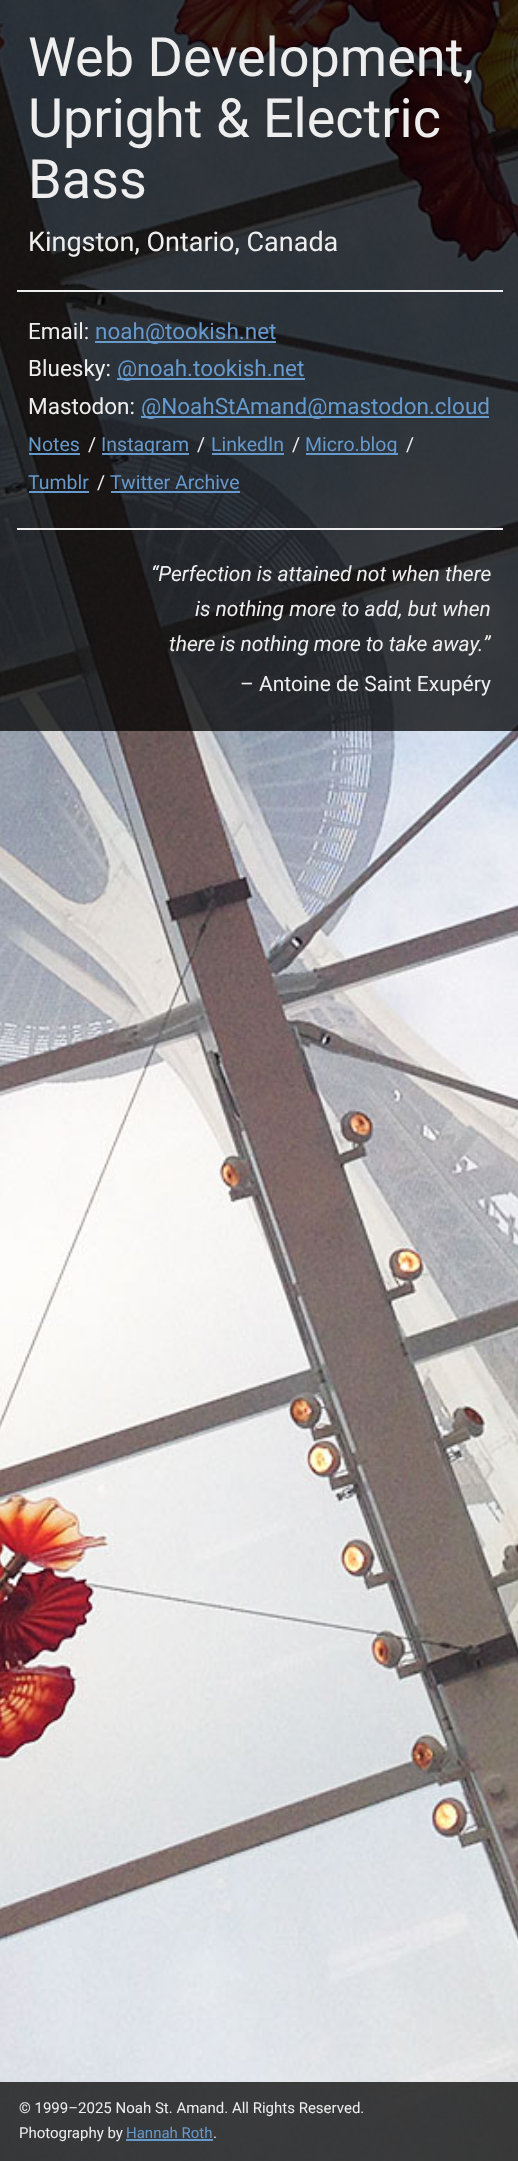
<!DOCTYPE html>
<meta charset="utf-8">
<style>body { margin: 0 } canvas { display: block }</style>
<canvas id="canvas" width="518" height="2161"></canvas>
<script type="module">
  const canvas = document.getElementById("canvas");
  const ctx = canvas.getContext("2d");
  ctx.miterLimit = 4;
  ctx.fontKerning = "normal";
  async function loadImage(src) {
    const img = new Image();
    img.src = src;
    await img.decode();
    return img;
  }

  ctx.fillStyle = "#ffffff";
  ctx.fillRect(0, 0, 518, 2161);
  ctx.drawImage(await loadImage("img1.png"), 0, 0, 518, 2161);
  ctx.fillStyle = "rgba(0, 0, 0, 0.75)";
  ctx.fillRect(0, 0, 518, 731);
  ctx.font = "54px Roboto";
  ctx.fillStyle = "#eeeeee";
  ctx.fillText("Web Development,", 28, 76);
  ctx.fillText("Upright & Electric", 28, 137);
  ctx.fillText("Bass", 28, 198);
  ctx.font = "27px Roboto";
  ctx.fillText("Kingston, Ontario, Canada", 28, 251);
  ctx.fillRect(17, 290, 486, 2);
  ctx.fillRect(17, 528, 486, 2);
  ctx.font = "22.5px Roboto";
  ctx.fillText("Email:", 28, 339);
  ctx.fillStyle = "#6699cc";
  ctx.fillRect(95, 341, 181, 2);
  ctx.fillText("noah@tookish.net", 95, 339);
  ctx.fillStyle = "#eeeeee";
  ctx.fillText("Bluesky:", 28, 376);
  ctx.fillStyle = "#6699cc";
  ctx.fillRect(117, 378, 188, 2);
  ctx.fillText("@noah.tookish.net", 117, 376);
  ctx.fillStyle = "#eeeeee";
  ctx.fillText("Mastodon:", 28, 414);
  ctx.fillStyle = "#6699cc";
  ctx.fillRect(141, 416, 348, 2);
  ctx.fillText("@NoahStAmand@mastodon.cloud", 141, 414);
  ctx.font = "19.5px Roboto";
  ctx.fillText("Notes", 28, 451);
  ctx.fillRect(29, 453, 51, 2);
  ctx.fillStyle = "#eeeeee";
  ctx.fillText("/", 88, 451);
  ctx.fillStyle = "#6699cc";
  ctx.fillRect(102, 453, 87, 2);
  ctx.fillText("Instagram", 101, 451);
  ctx.fillStyle = "#eeeeee";
  ctx.fillText("/", 197, 451);
  ctx.fillStyle = "#6699cc";
  ctx.fillText("LinkedIn", 211, 451);
  ctx.fillRect(212, 453, 72, 2);
  ctx.fillStyle = "#eeeeee";
  ctx.fillText("/", 292, 451);
  ctx.fillStyle = "#6699cc";
  ctx.fillRect(306, 453, 92, 2);
  ctx.fillText("Micro.blog", 305, 451);
  ctx.fillStyle = "#eeeeee";
  ctx.fillText("/", 406, 451);
  ctx.fillStyle = "#6699cc";
  ctx.fillText("Tumblr", 28, 489);
  ctx.fillRect(29, 491, 60, 2);
  ctx.fillStyle = "#eeeeee";
  ctx.fillText("/", 97, 489);
  ctx.fillStyle = "#6699cc";
  ctx.fillText("Twitter Archive", 110, 489);
  ctx.fillRect(111, 491, 129, 2);
  ctx.font = "italic 21px Roboto";
  ctx.fillStyle = "#eeeeee";
  ctx.fillText("“Perfection is attained not when there", 151, 581);
  ctx.fillText("is nothing more to add, but when", 195, 616);
  ctx.wordSpacing = "-0.25px";
  ctx.fillText("there is nothing more to take away.", 169, 651);
  ctx.wordSpacing = "0px";
  ctx.fillText("”", 483, 651);
  ctx.font = "21px Roboto";
  ctx.fillText("– Antoine de Saint Exupéry", 240, 691);
  ctx.fillStyle = "rgba(0, 0, 0, 0.75)";
  ctx.fillRect(0, 2082, 518, 79);
  ctx.font = "15px Roboto";
  ctx.fillStyle = "#eeeeee";
  ctx.fillText("© 1999–2025 Noah St. Amand. All Rights Reserved.", 19, 2113);
  ctx.fillText("Photography by", 19, 2138);
  ctx.fillStyle = "#6699cc";
  ctx.fillText("Hannah Roth", 126, 2138);
  ctx.fillRect(126, 2139, 87, 2);
  ctx.fillStyle = "#eeeeee";
  ctx.fillText(".", 213, 2138);
</script>
